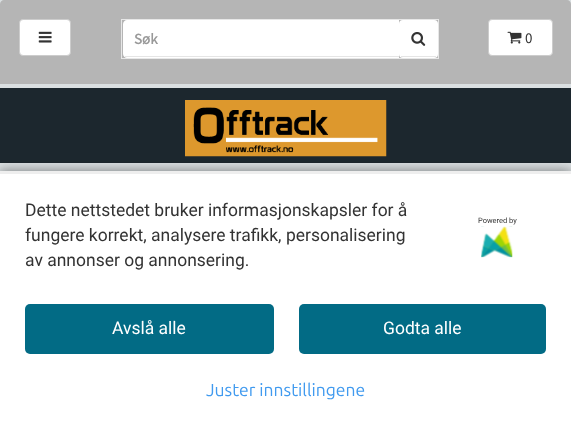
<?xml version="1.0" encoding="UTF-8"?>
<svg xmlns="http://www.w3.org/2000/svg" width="571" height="428">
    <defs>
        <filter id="blur1" x="-50%" y="-200%" width="200%" height="500%"><feGaussianBlur stdDeviation="6"/></filter>
    </defs>
    <rect width="100%" height="100%" fill="#DADFE1"/>
    <path d="M 4 0 H 567 C 569 0 571 2 571 4 V 84 H 0 V 4 C 0 2 2 0 4 0 Z" fill="#B5B5B5"/>
    <rect x="19.5" y="19.5" width="51" height="36" rx="3.5" fill="#FFFFFF" stroke="#CCCCCC"/>
    <image x="38" y="31" width="14" height="12" href="img_01.png"/>
    <rect x="121.5" y="19.5" width="317" height="39" fill="none" stroke="#E7E7E7"/>
    <path d="M 127 20 H 399 V 58 H 127 C 125 58 123 56 123 54 V 24 C 123 22 125 20 127 20 Z" fill="#FFFFFF"/>
    <rect x="125" y="56" width="274" height="1" fill="#E5E5E5"/>
    <text x="134" y="44" font-family="Source Sans Pro" font-size="15" font-weight="700" fill="#999999">Søk</text>
    <rect x="399" y="20" width="39" height="38" rx="4" fill="#FFFFFF"/>
    <rect x="401" y="56" width="35" height="1" fill="#E5E5E5"/>
    <image x="411" y="32" width="15" height="14" href="img_02.png"/>
    <rect x="488.5" y="19.5" width="64" height="36" rx="3.5" fill="#FFFFFF" stroke="#CCCCCC"/>
    <image x="507" y="31" width="15" height="13" href="img_03.png"/>
    <text x="525" y="43" font-family="Source Sans Pro" font-size="15" fill="#333333">0</text>
    <rect x="0" y="88" width="571" height="75" fill="#1C272E"/>
    <image x="185" y="100" width="202" height="57" href="img_04.png"/>
    <rect x="0" y="171" width="571" height="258" fill="#000000" fill-opacity="0.25" filter="url(#blur1)"/>
    <rect x="0" y="171" width="571" height="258" fill="#000000" fill-opacity="0.25" filter="url(#blur1)"/>
    <rect x="0" y="174" width="571" height="254" fill="#FFFFFF"/>
    <rect x="0" y="171" width="571" height="3" fill="#EEEEEE"/>
    <text font-family="Roboto" font-size="17.5" fill="#333333">
        <tspan x="25" y="216">Dette nettstedet bruker informasjonskapsler for å</tspan>
        <tspan x="25" y="241">fungere korrekt, analysere trafikk, personalisering</tspan>
        <tspan x="25" y="266">av annonser og annonsering.</tspan>
    </text>
    <text x="478" y="223" font-family="Roboto" font-size="7.5" fill="#333333">Powered by</text>
    <image x="481" y="226" width="32" height="32" href="img_05.png"/>
    <rect x="25" y="304" width="249" height="50" rx="5" fill="#026B85"/>
    <text x="112" y="334" font-family="Roboto" font-size="17.5" fill="#FFFFFF">Avslå alle</text>
    <rect x="299" y="304" width="247" height="50" rx="5" fill="#026B85"/>
    <text x="383" y="334" font-family="Roboto" font-size="17.5" fill="#FFFFFF">Godta alle</text>
    <text x="206" y="396" font-family="Ubuntu" font-size="17.5" fill="#409AEF">Juster innstillingene</text>
</svg>
